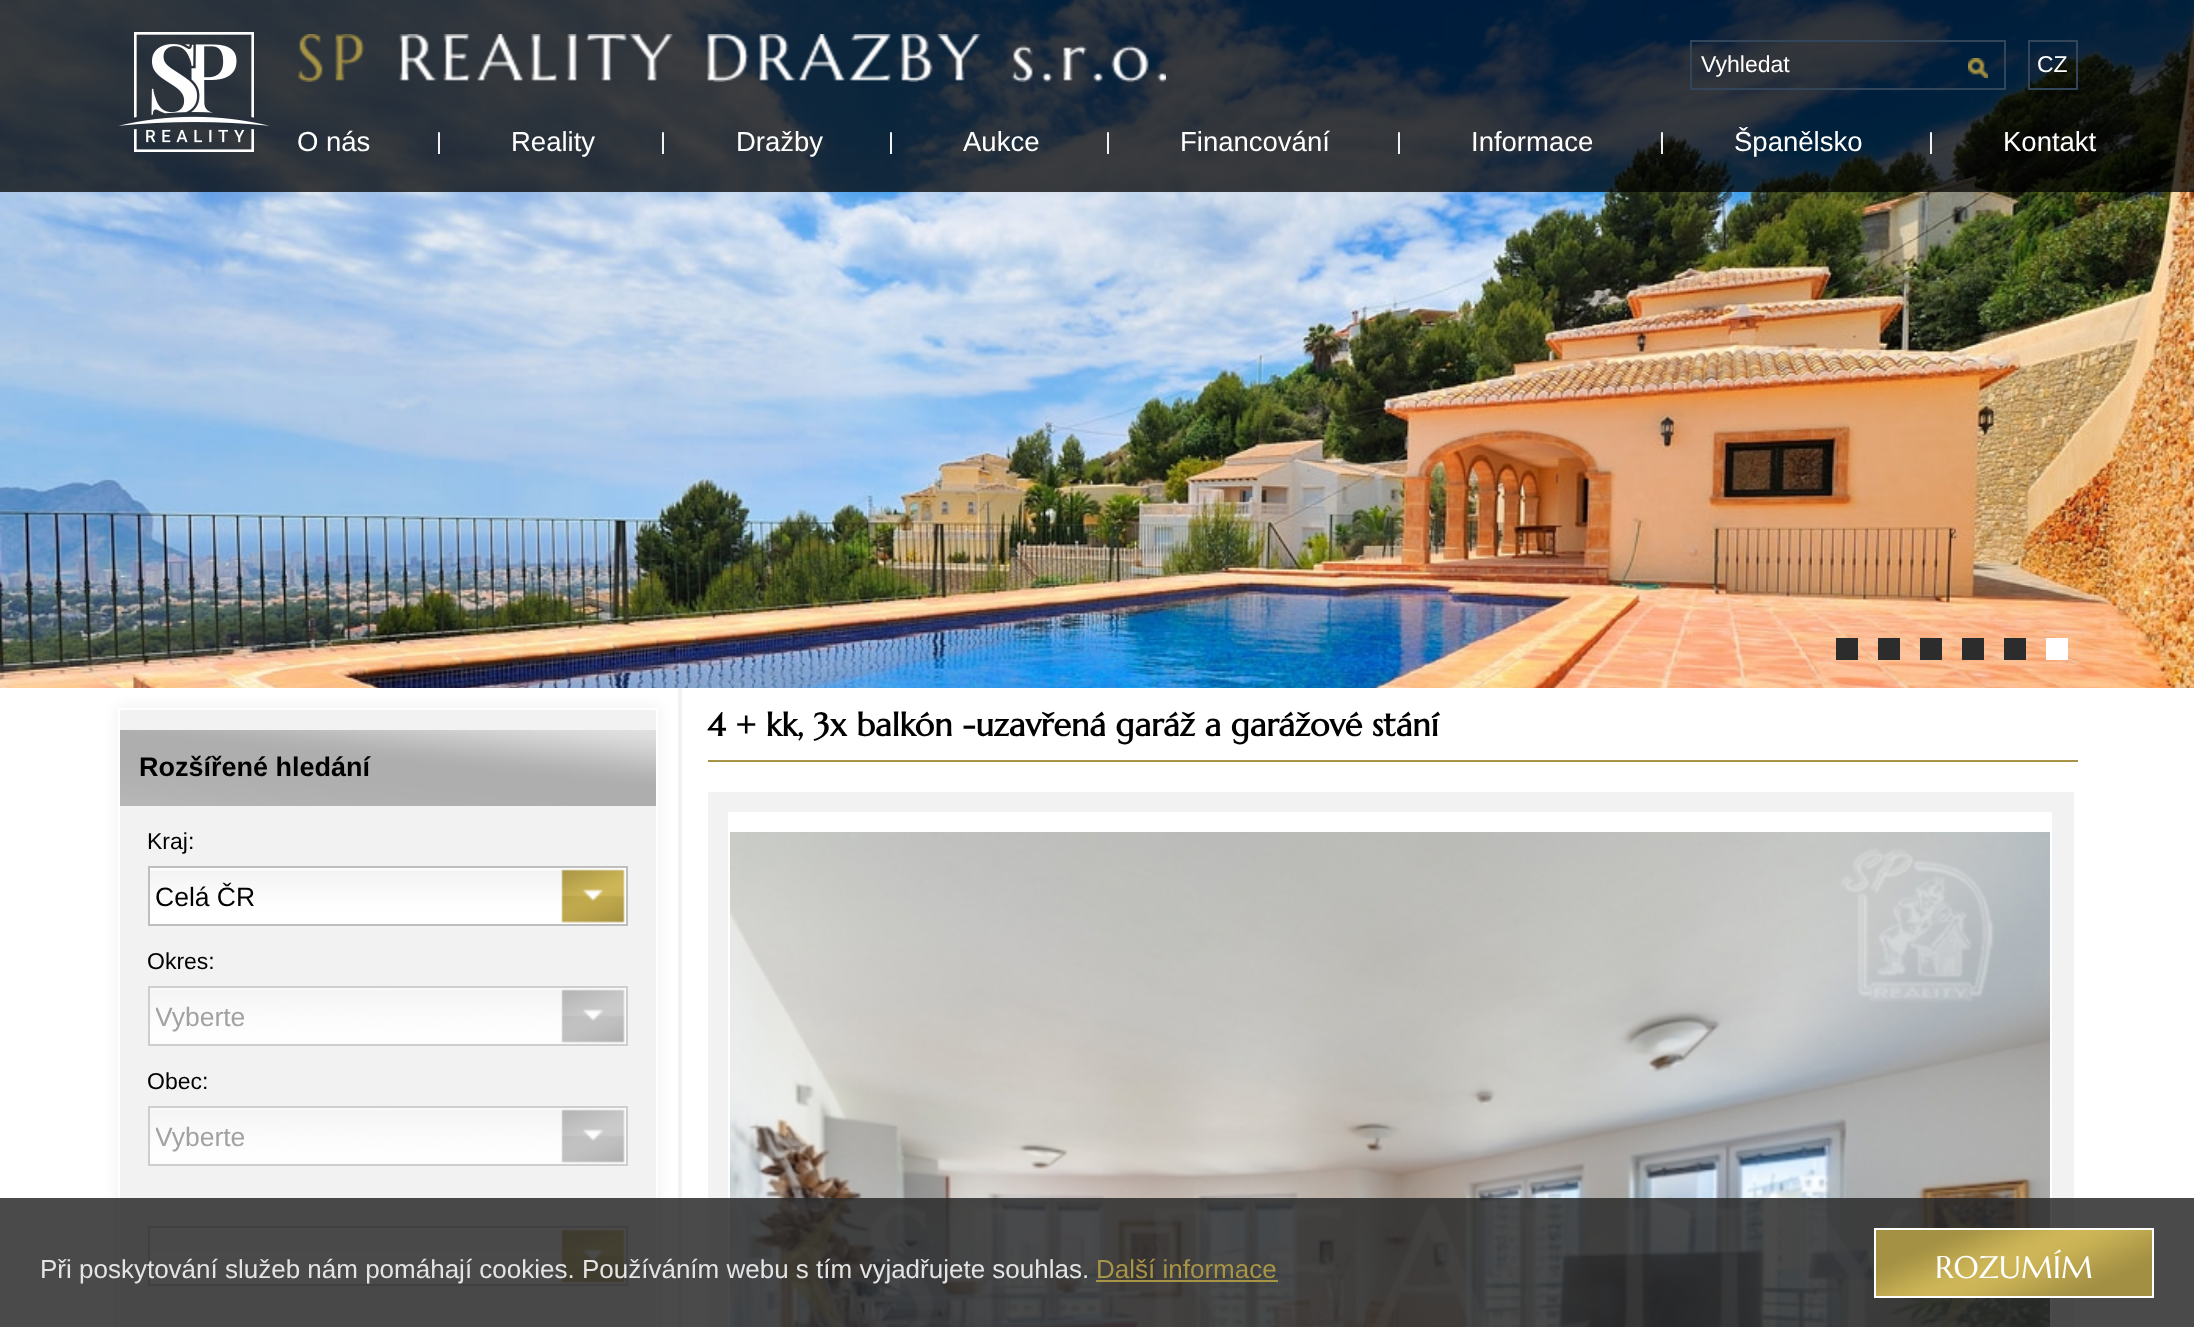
<?xml version="1.0" encoding="UTF-8"?>
<svg xmlns="http://www.w3.org/2000/svg" width="2194" height="1327">
    <defs>
        <filter id="blur1" x="-50%" y="-200%" width="200%" height="500%"><feGaussianBlur stdDeviation="8"/></filter>
        <clipPath id="clip1"><rect x="156" y="988" width="464" height="60"/></clipPath>
        <clipPath id="clip2"><rect x="156" y="1108" width="464" height="60"/></clipPath>
    </defs>
    <rect width="100%" height="100%" fill="#FFFFFF"/>
    <image x="0" y="0" width="2194" height="688" href="img_01.png"/>
    <rect x="1836" y="638" width="22" height="22" fill="#2C2C2C"/>
    <rect x="1878" y="638" width="22" height="22" fill="#2C2C2C"/>
    <rect x="1920" y="638" width="22" height="22" fill="#2C2C2C"/>
    <rect x="1962" y="638" width="22" height="22" fill="#2C2C2C"/>
    <rect x="2004" y="638" width="22" height="22" fill="#2C2C2C"/>
    <rect x="2046" y="638" width="22" height="22" fill="#FFFFFF"/>
    <rect x="0" y="0" width="2194" height="192" fill="#000000" fill-opacity="0.75"/>
    <image x="118" y="32" width="152" height="120" href="img_02.png"/>
    <image x="298" y="34" width="868" height="48" href="img_03.png"/>
    <rect x="1691" y="41" width="314" height="48" fill="none" stroke="#334559" stroke-width="2"/>
    <text x="1701" y="72" font-family="Liberation Sans" font-size="23" fill="#FFFFFF">Vyhledat</text>
    <image x="1968" y="58" width="20" height="20" href="img_04.png"/>
    <rect x="2029" y="41" width="48" height="48" fill="none" stroke="#334559" stroke-width="2"/>
    <text x="2037" y="72" font-family="Liberation Sans" font-size="23" fill="#FFFFFF">CZ</text>
    <text x="297" y="151" font-family="Liberation Sans" font-size="27.5" fill="#FFFFFF">O nás</text>
    <text x="436" y="149" font-family="Liberation Sans" font-size="23" fill="#FFFFFF">|</text>
    <text x="511" y="151" font-family="Liberation Sans" font-size="27.5" fill="#FFFFFF">Reality</text>
    <text x="660" y="149" font-family="Liberation Sans" font-size="23" fill="#FFFFFF">|</text>
    <text x="736" y="151" font-family="Liberation Sans" font-size="27.5" fill="#FFFFFF">Dražby</text>
    <text x="888" y="149" font-family="Liberation Sans" font-size="23" fill="#FFFFFF">|</text>
    <text x="963" y="151" font-family="Liberation Sans" font-size="27.5" fill="#FFFFFF">Aukce</text>
    <text x="1105" y="149" font-family="Liberation Sans" font-size="23" fill="#FFFFFF">|</text>
    <text x="1180" y="151" font-family="Liberation Sans" font-size="27.5" fill="#FFFFFF">Financování</text>
    <text x="1396" y="149" font-family="Liberation Sans" font-size="23" fill="#FFFFFF">|</text>
    <text x="1471" y="151" font-family="Liberation Sans" font-size="27.5" fill="#FFFFFF">Informace</text>
    <text x="1659" y="149" font-family="Liberation Sans" font-size="23" fill="#FFFFFF">|</text>
    <text x="1734" y="151" font-family="Liberation Sans" font-size="27.5" fill="#FFFFFF">Španělsko</text>
    <text x="1928" y="149" font-family="Liberation Sans" font-size="23" fill="#FFFFFF">|</text>
    <text x="2003" y="151" font-family="Liberation Sans" font-size="27.5" fill="#FFFFFF">Kontakt</text>
    <rect x="678" y="688" width="4" height="639" fill="#F2F2F2"/>
    <rect x="708" y="760" width="1370" height="2" fill="#A89446"/>
    <text x="707" y="736" font-family="Marcellus" font-size="32.25" font-weight="700" fill="#000000">4 + kk, 3x balkón -uzavřená garáž a garážové stání</text>
    <rect x="708" y="792" width="1366" height="535" fill="#F2F2F2"/>
    <rect x="728" y="812" width="1324" height="515" fill="#FFFFFF"/>
    <image x="730" y="832" width="1320" height="495" href="img_05.png"/>
    <image x="772" y="1201" width="72" height="126" href="img_06.png"/>
    <image x="1937" y="1201" width="42" height="126" href="img_07.png"/>
    <rect x="118" y="708" width="540" height="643" fill="#EEEEEF" filter="url(#blur1)"/>
    <rect x="119" y="709" width="538" height="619" fill="#F2F2F2" stroke="#FFFFFF" stroke-width="2"/>
    <image x="120" y="730" width="536" height="76" href="img_08.png"/>
    <text x="139" y="776" font-family="Liberation Sans" font-size="27" font-weight="700" fill="#000000">Rozšířené hledání</text>
    <text x="147" y="849" font-family="Liberation Sans" font-size="23" fill="#000000">Kraj:</text>
    <rect x="150" y="868" width="476" height="56" fill="#FFFFFF"/>
    <image x="150" y="869" width="476" height="54" href="img_09.png"/>
    <rect x="149" y="867" width="478" height="58" fill="none" stroke="#BEBEBE" stroke-width="2"/>
    <text x="155" y="906" font-family="Liberation Sans" font-size="26.5" fill="#000000">Celá ČR</text>
    <text x="147" y="969" font-family="Liberation Sans" font-size="23" fill="#000000">Okres:</text>
    <rect x="150" y="988" width="476" height="56" fill="#FBFBFB"/>
    <image x="150" y="989" width="476" height="54" href="img_10.png"/>
    <rect x="149" y="987" width="478" height="58" fill="none" stroke="#CECECE" stroke-width="2"/>
    <g clip-path="url(#clip1)">
        <text x="155" y="1026" font-family="Liberation Sans" font-size="26.5" fill="#A2A2A2">Vyberte</text>
    </g>
    <text x="147" y="1089" font-family="Liberation Sans" font-size="23" fill="#000000">Obec:</text>
    <rect x="150" y="1108" width="476" height="56" fill="#FBFBFB"/>
    <image x="150" y="1109" width="476" height="54" href="img_10.png"/>
    <rect x="149" y="1107" width="478" height="58" fill="none" stroke="#CECECE" stroke-width="2"/>
    <g clip-path="url(#clip2)">
        <text x="155" y="1146" font-family="Liberation Sans" font-size="26.5" fill="#A2A2A2">Vyberte</text>
    </g>
    <rect x="150" y="1228" width="476" height="56" fill="#FFFFFF"/>
    <image x="150" y="1229" width="476" height="54" href="img_09.png"/>
    <rect x="149" y="1227" width="478" height="58" fill="none" stroke="#BEBEBE" stroke-width="2"/>
    <rect x="0" y="1198" width="2194" height="129" fill="#2A2A2A" fill-opacity="0.85"/>
    <text x="40" y="1278" font-family="Liberation Sans" font-size="26" fill="#E4E4E4">Při poskytování služeb nám pomáhají cookies. Používáním webu s tím vyjadřujete souhlas.</text>
    <text x="1096" y="1278" font-family="Liberation Sans" font-size="26" fill="#A89446">Další informace</text>
    <rect x="1096" y="1280" width="182" height="2" fill="#A89446"/>
    <image x="1876" y="1230" width="276" height="66" href="img_11.png"/>
    <rect x="1875" y="1229" width="278" height="68" fill="none" stroke="#FFFFFF" stroke-width="2"/>
    <text x="1935" y="1278" font-family="Marcellus" font-size="31.25" fill="#FFFFFF">ROZUMÍM</text>
</svg>
